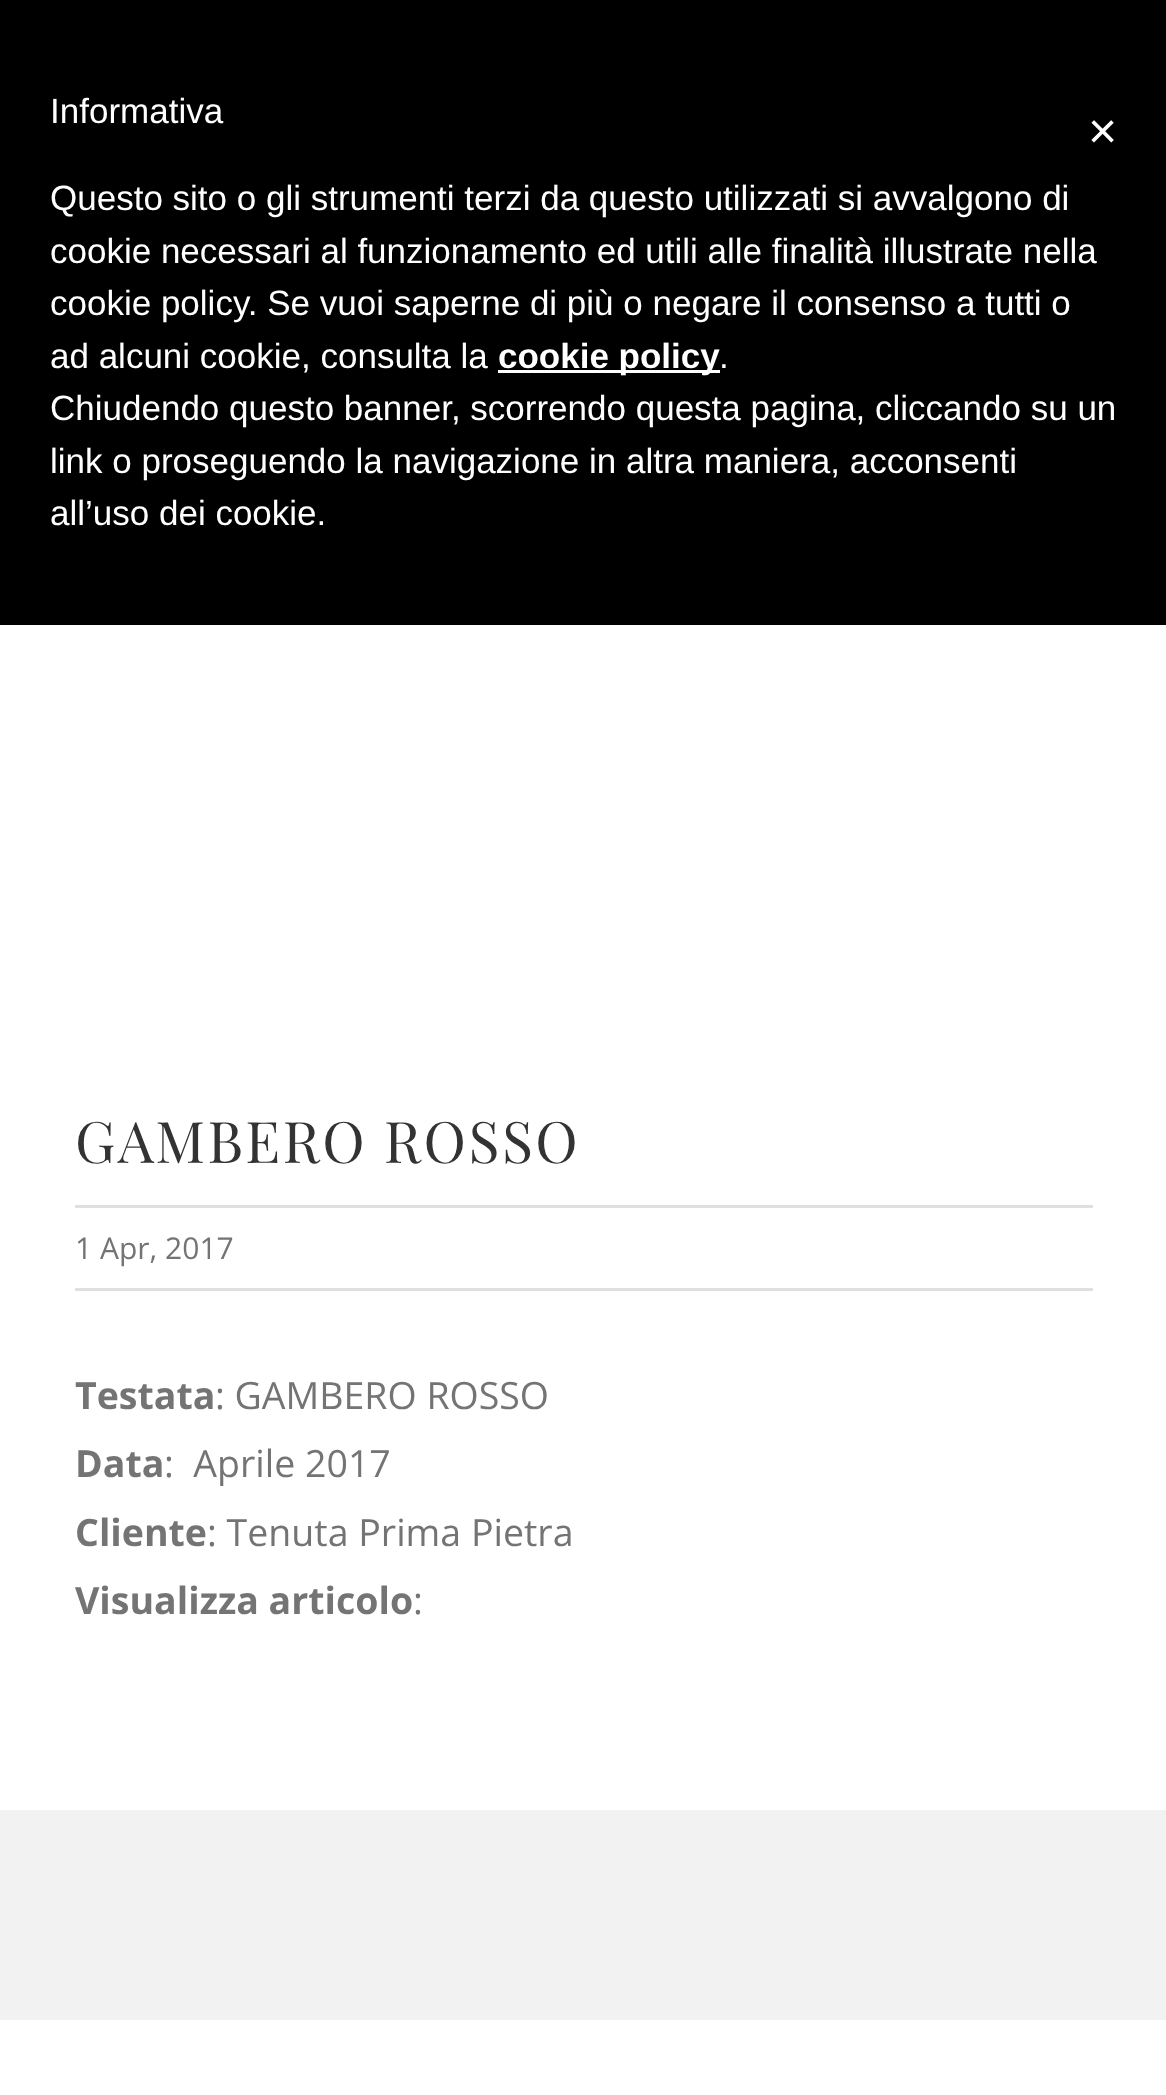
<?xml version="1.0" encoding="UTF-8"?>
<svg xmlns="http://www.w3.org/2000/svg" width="1166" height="2095">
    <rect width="100%" height="100%" fill="#FFFFFF"/>
    <rect x="0" y="0" width="1166" height="625" fill="#000000"/>
    <text x="50" y="123" font-family="Liberation Sans" font-size="35" fill="#FFFFFF">Informativa</text>
    <text font-family="Liberation Sans" font-size="35" fill="#FFFFFF">
        <tspan x="50" y="210">Questo sito o gli strumenti terzi da questo utilizzati si avvalgono di</tspan>
        <tspan x="50" y="263">cookie necessari al funzionamento ed utili alle finalità illustrate nella</tspan>
        <tspan x="50" y="315">cookie policy. Se vuoi saperne di più o negare il consenso a tutti o</tspan>
        <tspan x="50" y="368">ad alcuni cookie, consulta la</tspan>
    </text>
    <rect x="498" y="370" width="222" height="3" fill="#FFFFFF"/>
    <text x="498" y="368" font-family="Liberation Sans" font-size="35" font-weight="700" fill="#FFFFFF">cookie policy</text>
    <text x="719" y="368" font-family="Liberation Sans" font-size="35" fill="#FFFFFF">.</text>
    <text font-family="Liberation Sans" font-size="35" fill="#FFFFFF">
        <tspan x="50" y="420">Chiudendo questo banner, scorrendo questa pagina, cliccando su un</tspan>
        <tspan x="50" y="473">link o proseguendo la navigazione in altra maniera, acconsenti</tspan>
        <tspan x="50" y="525">all’uso dei cookie.</tspan>
    </text>
    <text x="1088" y="148" font-family="Liberation Sans" font-size="50" fill="#FFFFFF">×</text>
    <text x="75" y="1163" font-family="Playfair Display" font-size="57.25" letter-spacing="2.5" fill="#333333">GAMBERO ROSSO</text>
    <rect x="75" y="1205" width="1018" height="3" fill="#E0DEDE"/>
    <rect x="75" y="1288" width="1018" height="3" fill="#E0DEDE"/>
    <text x="75" y="1259" font-family="Open Sans" font-size="30" fill="#747474">1 Apr, 2017</text>
    <text x="75" y="1409" font-family="Open Sans" font-size="37.5" font-weight="700" fill="#747474">Testata</text>
    <text x="215" y="1409" font-family="Open Sans" font-size="37.5" fill="#747474">: GAMBERO ROSSO</text>
    <text x="75" y="1477" font-family="Open Sans" font-size="37.5" font-weight="700" fill="#747474">Data</text>
    <text x="164" y="1477" font-family="Open Sans" font-size="37.5" fill="#747474" xml:space="preserve">:  Aprile 2017</text>
    <text x="75" y="1546" font-family="Open Sans" font-size="37.5" font-weight="700" fill="#747474">Cliente</text>
    <text x="207" y="1546" font-family="Open Sans" font-size="37.5" fill="#747474">: Tenuta Prima Pietra</text>
    <text x="75" y="1614" font-family="Open Sans" font-size="37.5" font-weight="700" fill="#747474">Visualizza articolo</text>
    <text x="413" y="1614" font-family="Open Sans" font-size="37.5" fill="#747474">:</text>
    <rect x="0" y="1810" width="1166" height="210" fill="#F2F2F2"/>
</svg>
